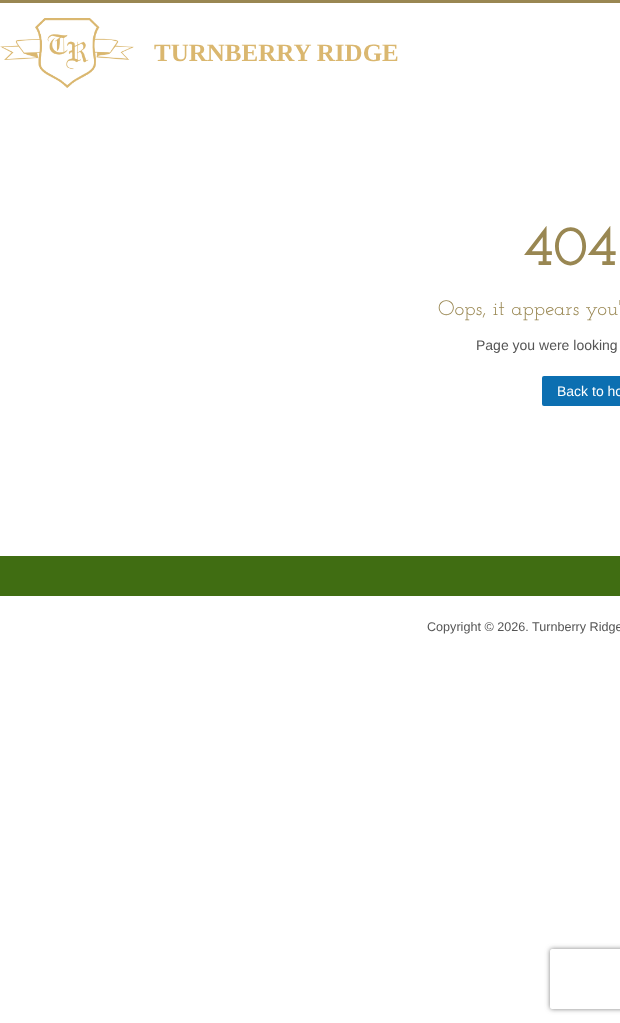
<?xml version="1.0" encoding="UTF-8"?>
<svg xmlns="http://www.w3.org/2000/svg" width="620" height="1023">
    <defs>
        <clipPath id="clip1"><path d="M 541 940 H 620 V 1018 H 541 Z M 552 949 H 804 C 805 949 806 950 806 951 V 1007 C 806 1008 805 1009 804 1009 H 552 C 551 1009 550 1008 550 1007 V 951 C 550 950 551 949 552 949 Z" clip-rule="evenodd"/></clipPath>
        <filter id="blur1" x="-50%" y="-200%" width="200%" height="500%"><feGaussianBlur stdDeviation="2.5"/></filter>
    </defs>
    <rect width="100%" height="100%" fill="#FFFFFF"/>
    <rect x="0" y="0" width="620" height="3" fill="#998752"/>
    <image x="0" y="18" width="134" height="70" href="img_01.png"/>
    <text x="154" y="61" font-family="Liberation Serif" font-size="25" font-weight="700" fill="#DAB76F">TURNBERRY RIDGE</text>
    <text x="523" y="265" font-family="Josefin Slab" font-size="55" font-weight="700" fill="#998752">404</text>
    <text x="438" y="315" font-family="Josefin Slab" font-size="21" font-weight="100" fill="#998752">Oops, it appears you'</text>
    <text x="476" y="350" font-family="Liberation Sans" font-size="14" fill="#555555">Page you were looking</text>
    <rect x="542" y="376" width="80" height="30" rx="2" fill="#0C6FB1"/>
    <text x="557" y="396" font-family="Liberation Sans" font-size="14" fill="#FFFFFF">Back to ho</text>
    <rect x="0" y="556" width="620" height="40" fill="#406D12"/>
    <text x="427" y="631" font-family="Liberation Sans" font-size="12.6" fill="#555555">Copyright © 2026. Turnberry Ridge</text>
    <g clip-path="url(#clip1)">
        <rect x="550" y="949" width="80" height="60" rx="2" fill="#808080" filter="url(#blur1)"/>
    </g>
</svg>
